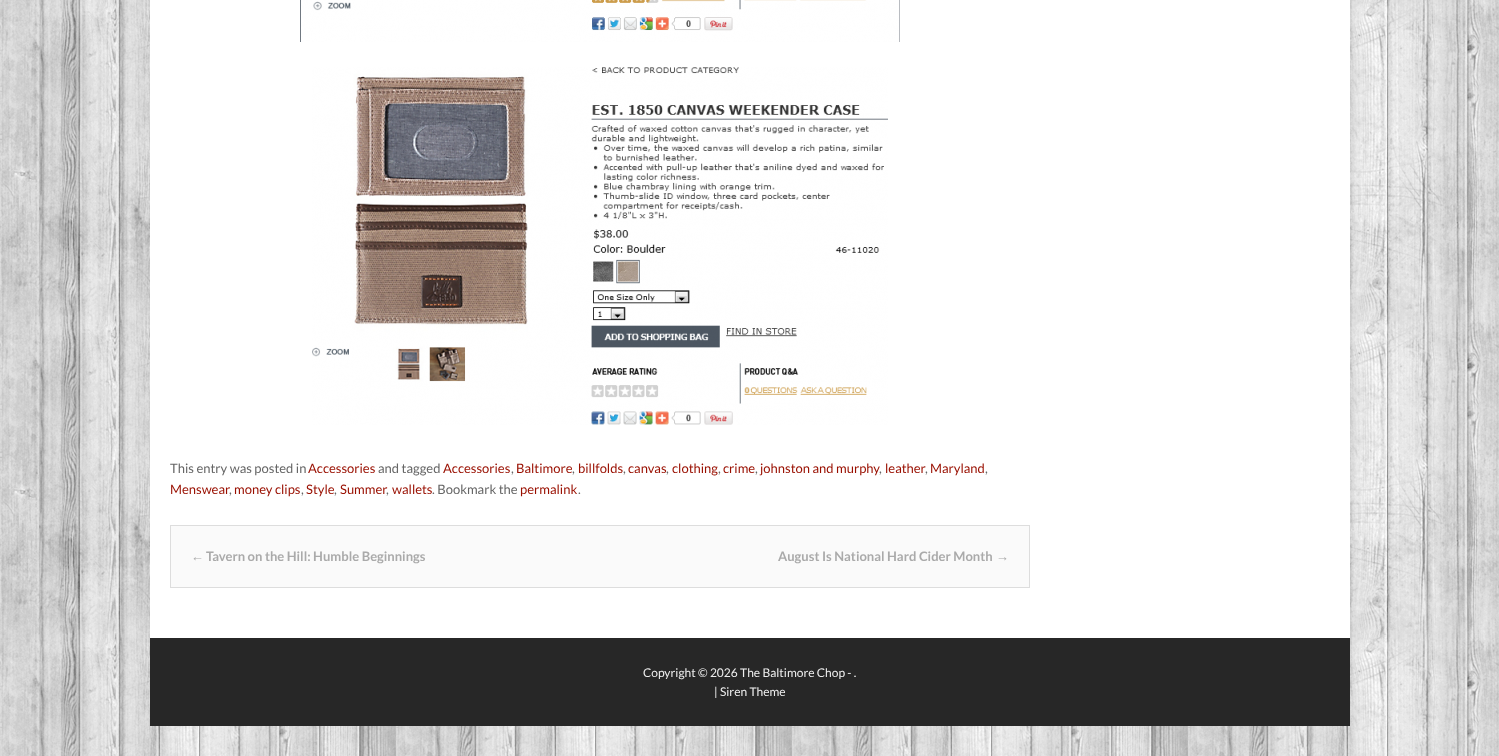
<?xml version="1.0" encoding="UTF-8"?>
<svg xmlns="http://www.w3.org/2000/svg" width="1499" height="756">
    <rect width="100%" height="100%" fill="#FFFFFF"/>
    <image x="0" y="0" width="1499" height="756" href="img_01.png"/>
    <rect x="150" y="0" width="1200" height="638" fill="#FFFFFF"/>
    <image x="300" y="0" width="600" height="42" href="img_02.png"/>
    <image x="312" y="67" width="576" height="358" href="img_03.png"/>
    <text x="170" y="473" font-family="Lato" font-size="13" fill="#666666">This entry was posted in</text>
    <text x="308" y="473" font-family="Lato" font-size="13" fill="#990F00">Accessories</text>
    <text x="378" y="473" font-family="Lato" font-size="13" fill="#666666">and tagged</text>
    <text x="443" y="473" font-family="Lato" font-size="13" fill="#990F00">Accessories</text>
    <text x="511" y="473" font-family="Lato" font-size="13" fill="#666666">,</text>
    <text x="516" y="473" font-family="Lato" font-size="13" fill="#990F00">Baltimore</text>
    <text x="572" y="473" font-family="Lato" font-size="13" fill="#666666">,</text>
    <text x="578" y="473" font-family="Lato" font-size="13" fill="#990F00">billfolds</text>
    <text x="623" y="473" font-family="Lato" font-size="13" fill="#666666">,</text>
    <text x="628" y="473" font-family="Lato" font-size="13" fill="#990F00">canvas</text>
    <text x="666" y="473" font-family="Lato" font-size="13" fill="#666666">,</text>
    <text x="672" y="473" font-family="Lato" font-size="13" fill="#990F00">clothing</text>
    <text x="718" y="473" font-family="Lato" font-size="13" fill="#666666">,</text>
    <text x="723" y="473" font-family="Lato" font-size="13" fill="#990F00">crime</text>
    <text x="755" y="473" font-family="Lato" font-size="13" fill="#666666">,</text>
    <text x="760" y="473" font-family="Lato" font-size="13" fill="#990F00">johnston and murphy</text>
    <text x="879" y="473" font-family="Lato" font-size="13" fill="#666666">,</text>
    <text x="885" y="473" font-family="Lato" font-size="13" fill="#990F00">leather</text>
    <text x="930" y="473" font-family="Lato" font-size="13" fill="#990F00">Maryland</text>
    <text x="925" y="473" font-family="Lato" font-size="13" fill="#666666">,</text>
    <text x="985" y="473" font-family="Lato" font-size="13" fill="#666666">,</text>
    <text x="170" y="494" font-family="Lato" font-size="13" fill="#990F00">Menswear</text>
    <text x="229" y="494" font-family="Lato" font-size="13" fill="#666666">,</text>
    <text x="234" y="494" font-family="Lato" font-size="13" fill="#990F00">money clips</text>
    <text x="301" y="494" font-family="Lato" font-size="13" fill="#666666">,</text>
    <text x="306" y="494" font-family="Lato" font-size="13" fill="#990F00">Style</text>
    <text x="334" y="494" font-family="Lato" font-size="13" fill="#666666">,</text>
    <text x="340" y="494" font-family="Lato" font-size="13" fill="#990F00">Summer</text>
    <text x="386" y="494" font-family="Lato" font-size="13" fill="#666666">,</text>
    <text x="392" y="494" font-family="Lato" font-size="13" fill="#990F00">wallets</text>
    <text x="432" y="494" font-family="Lato" font-size="13" fill="#666666">. Bookmark the</text>
    <text x="520" y="494" font-family="Lato" font-size="13" fill="#990F00">permalink</text>
    <text x="578" y="494" font-family="Lato" font-size="13" fill="#666666">.</text>
    <rect x="170.5" y="525.5" width="859" height="62" fill="#FAFAFA" stroke="#DDDDDD"/>
    <text x="191" y="561" font-family="Liberation Sans" font-size="13" font-weight="700" fill="#AAAAAA">←</text>
    <text x="206" y="561" font-family="Lato" font-size="13" font-weight="700" fill="#AAAAAA">Tavern on the Hill: Humble Beginnings</text>
    <text x="778" y="561" font-family="Lato" font-size="13" font-weight="700" fill="#AAAAAA">August Is National Hard Cider Month</text>
    <text x="996" y="561" font-family="Liberation Sans" font-size="13" font-weight="700" fill="#AAAAAA">→</text>
    <rect x="150" y="638" width="1200" height="88" fill="#272727"/>
    <text x="643" y="677" font-family="Lato" font-size="12" fill="#EEEEEE">Copyright © 2026 The Baltimore Chop - .</text>
    <text x="714" y="696" font-family="Lato" font-size="12" fill="#EEEEEE">| Siren Theme</text>
</svg>
